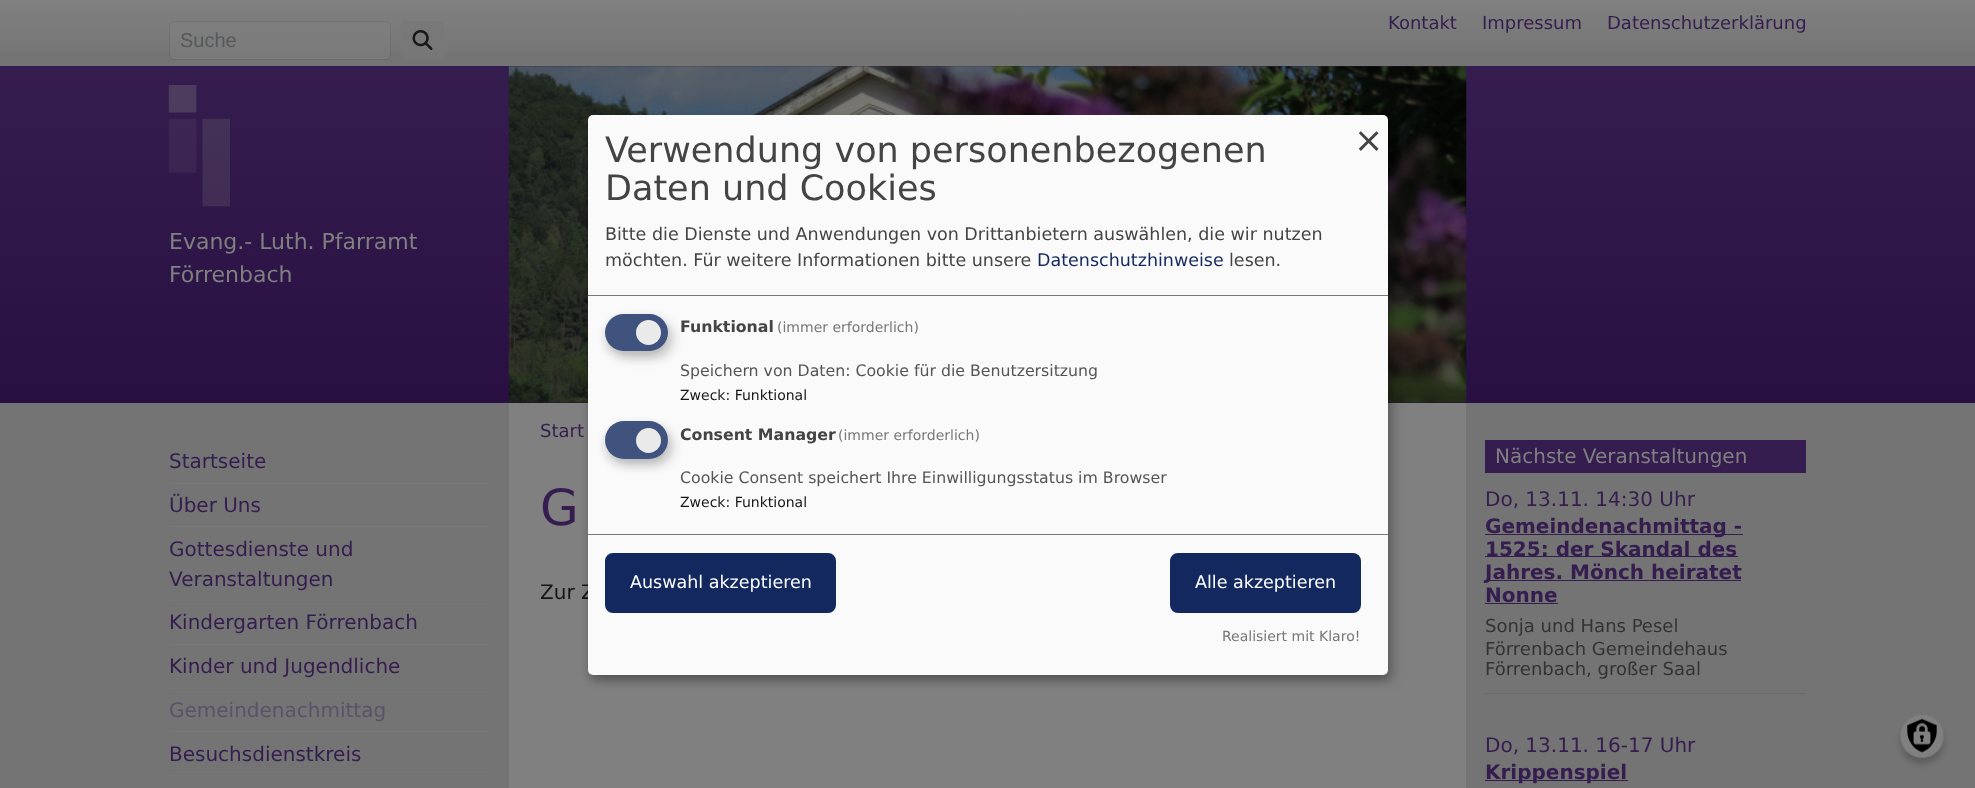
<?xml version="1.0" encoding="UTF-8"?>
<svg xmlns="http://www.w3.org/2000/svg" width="1975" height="788">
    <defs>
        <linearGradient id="g1" gradientUnits="userSpaceOnUse" x1="988" y1="0" x2="988" y2="66"><stop offset="0" stop-color="#808080"/><stop offset="1" stop-color="#747474"/></linearGradient>
        <linearGradient id="g2" gradientUnits="userSpaceOnUse" x1="988" y1="66" x2="988" y2="403"><stop offset="0" stop-color="#361D4F"/><stop offset="1" stop-color="#291042"/></linearGradient>
        <filter id="blur1" x="-50%" y="-200%" width="200%" height="500%"><feGaussianBlur stdDeviation="6"/></filter>
        <filter id="blur2" x="-50%" y="-200%" width="200%" height="500%"><feGaussianBlur stdDeviation="4"/></filter>
        <filter id="blur3" x="-50%" y="-200%" width="200%" height="500%"><feGaussianBlur stdDeviation="3"/></filter>
    </defs>
    <rect width="100%" height="100%" fill="#747474"/>
    <rect x="0" y="0" width="1975" height="52" fill="url(#g1)"/>
    <text x="1388" y="29" font-family="DejaVu Sans" font-size="18" fill="#361D4F">Kontakt</text>
    <text x="1482" y="29" font-family="DejaVu Sans" font-size="18" fill="#361D4F">Impressum</text>
    <text x="1607" y="29" font-family="DejaVu Sans" font-size="18" fill="#361D4F">Datenschutzerklärung</text>
    <rect x="170" y="23" width="220" height="36" rx="4" fill="#808080" fill-opacity="0.5"/>
    <rect x="169.5" y="21.5" width="221" height="38" rx="4.5" fill="none" stroke="#000000" stroke-opacity="0.07"/>
    <text x="180" y="47" font-family="Liberation Sans" font-size="20" fill="#57595B">Suche</text>
    <rect x="401" y="21" width="43" height="39" rx="5" fill="#787878" fill-opacity="0.8"/>
    <image x="412" y="30" width="21" height="20" href="img_01.png"/>
    <rect x="0" y="66" width="1975" height="337" fill="url(#g2)"/>
    <image x="168" y="85" width="62" height="122" href="img_02.png"/>
    <text font-family="DejaVu Sans" font-size="22" fill="#808080">
        <tspan x="169" y="249">Evang.- Luth. Pfarramt</tspan>
        <tspan x="169" y="282">Förrenbach</tspan>
    </text>
    <image x="508" y="66" width="959" height="337" href="img_03.png"/>
    <rect x="169" y="483" width="321" height="1" fill="#787878"/>
    <text x="169" y="468" font-family="DejaVu Sans" font-size="20" fill="#361D4F">Startseite</text>
    <rect x="169" y="526" width="321" height="1" fill="#787878"/>
    <text x="169" y="512" font-family="DejaVu Sans" font-size="20" fill="#361D4F">Über Uns</text>
    <rect x="169" y="600" width="321" height="1" fill="#787878"/>
    <text font-family="DejaVu Sans" font-size="20" fill="#361D4F">
        <tspan x="169" y="556">Gottesdienste und</tspan>
        <tspan x="169" y="586">Veranstaltungen</tspan>
    </text>
    <rect x="169" y="644" width="321" height="1" fill="#787878"/>
    <text x="169" y="629" font-family="DejaVu Sans" font-size="20" fill="#361D4F">Kindergarten Förrenbach</text>
    <rect x="169" y="688" width="321" height="1" fill="#787878"/>
    <text x="169" y="673" font-family="DejaVu Sans" font-size="20" fill="#361D4F">Kinder und Jugendliche</text>
    <rect x="169" y="731" width="321" height="1" fill="#787878"/>
    <text x="169" y="717" font-family="DejaVu Sans" font-size="20" fill="#5D5169">Gemeindenachmittag</text>
    <rect x="169" y="775" width="321" height="1" fill="#787878"/>
    <text x="169" y="761" font-family="DejaVu Sans" font-size="20" fill="#361D4F">Besuchsdienstkreis</text>
    <rect x="509" y="403" width="957" height="385" fill="#808080"/>
    <text x="540" y="437" font-family="DejaVu Sans" font-size="18" fill="#361D4F">Start</text>
    <text x="540" y="525" font-family="DejaVu Sans" font-size="50" fill="#361D4F">G</text>
    <text x="540" y="599" font-family="DejaVu Sans" font-size="20" fill="#151616">Zur Z</text>
    <rect x="1485" y="440" width="321" height="33" fill="#361D4F"/>
    <text x="1495" y="463" font-family="DejaVu Sans" font-size="20" fill="#808080">Nächste Veranstaltungen</text>
    <rect x="1485" y="693" width="321" height="1" fill="#6B6B6B"/>
    <text x="1485" y="506" font-family="DejaVu Sans" font-size="20" fill="#361D4F">Do, 13.11. 14:30 Uhr</text>
    <rect x="1485" y="534" width="258" height="1" fill="#361D4F"/>
    <text x="1485" y="533" font-family="DejaVu Sans" font-size="20" font-weight="700" fill="#361D4F">Gemeindenachmittag -</text>
    <rect x="1485" y="556" width="253" height="1" fill="#361D4F"/>
    <text x="1485" y="556" font-family="DejaVu Sans" font-size="20" font-weight="700" fill="#361D4F">1525: der Skandal des</text>
    <rect x="1485" y="580" width="256" height="1" fill="#361D4F"/>
    <text font-family="DejaVu Sans" font-size="20" font-weight="700" fill="#361D4F">
        <tspan x="1485" y="579">Jahres. Mönch heiratet</tspan>
        <tspan x="1485" y="602">Nonne</tspan>
    </text>
    <rect x="1485" y="603" width="73" height="1" fill="#361D4F"/>
    <text font-family="DejaVu Sans" font-size="18" fill="#333333">
        <tspan x="1485" y="632">Sonja und Hans Pesel</tspan>
        <tspan x="1485" y="655">Förrenbach Gemeindehaus</tspan>
        <tspan x="1485" y="675">Förrenbach, großer Saal</tspan>
    </text>
    <text x="1485" y="752" font-family="DejaVu Sans" font-size="20" fill="#361D4F">Do, 13.11. 16-17 Uhr</text>
    <rect x="1485" y="780" width="143" height="1" fill="#361D4F"/>
    <text x="1485" y="779" font-family="DejaVu Sans" font-size="20" font-weight="700" fill="#361D4F">Krippenspiel</text>
    <rect x="594" y="121" width="800" height="560" rx="5" fill="#000000" fill-opacity="0.19" filter="url(#blur1)"/>
    <rect x="588" y="120" width="800" height="560" rx="5" fill="#000000" fill-opacity="0.2" filter="url(#blur2)"/>
    <rect x="588" y="115" width="800" height="560" rx="5" fill="#FAFAFA"/>
    <rect x="588" y="295" width="800" height="1" fill="#777777"/>
    <text font-family="DejaVu Sans" font-size="35" fill="#444444">
        <tspan x="605" y="162">Verwendung von personenbezogenen</tspan>
        <tspan x="605" y="200">Daten und Cookies</tspan>
    </text>
    <text font-family="DejaVu Sans" font-size="17.5" fill="#444444">
        <tspan x="605" y="240">Bitte die Dienste und Anwendungen von Drittanbietern auswählen, die wir nutzen</tspan>
        <tspan x="605" y="266">möchten. Für weitere Informationen bitte unsere</tspan>
    </text>
    <text x="1037" y="266" font-family="DejaVu Sans" font-size="17.5" fill="#12285F">Datenschutzhinweise</text>
    <text x="1229" y="266" font-family="DejaVu Sans" font-size="17.5" fill="#444444">lesen.</text>
    <text x="1354" y="152" font-family="DejaVu Sans" font-size="35" fill="#444444">×</text>
    <rect x="611" y="320" width="63" height="38" rx="19" fill="#000000" fill-opacity="0.15" filter="url(#blur1)"/>
    <rect x="605" y="319" width="63" height="37" rx="18.5" fill="#323232" fill-opacity="0.2" filter="url(#blur2)"/>
    <rect x="605" y="314" width="63" height="37" rx="18.5" fill="#40527E"/>
    <circle cx="648.5" cy="332.5" r="12.5" fill="#EAEAEA"/>
    <text x="680" y="332" font-family="DejaVu Sans" font-size="15.75" font-weight="700" fill="#444444">Funktional</text>
    <text x="777" y="332" font-family="DejaVu Sans" font-size="14" fill="#777777">(immer erforderlich)</text>
    <text x="680" y="376" font-family="DejaVu Sans" font-size="15.75" fill="#555555">Speichern von Daten: Cookie für die Benutzersitzung</text>
    <text x="680" y="400" font-family="DejaVu Sans" font-size="14" fill="#151616">Zweck: Funktional</text>
    <rect x="611" y="428" width="63" height="37" rx="18.5" fill="#000000" fill-opacity="0.15" filter="url(#blur1)"/>
    <rect x="605" y="426" width="63" height="38" rx="19" fill="#323232" fill-opacity="0.2" filter="url(#blur2)"/>
    <rect x="605" y="421" width="63" height="38" rx="19" fill="#40527E"/>
    <circle cx="648.5" cy="440.5" r="12.5" fill="#EAEAEA"/>
    <text x="680" y="440" font-family="DejaVu Sans" font-size="15.75" font-weight="700" fill="#444444">Consent Manager</text>
    <text x="838" y="440" font-family="DejaVu Sans" font-size="14" fill="#777777">(immer erforderlich)</text>
    <text x="680" y="483" font-family="DejaVu Sans" font-size="15.75" fill="#555555">Cookie Consent speichert Ihre Einwilligungsstatus im Browser</text>
    <text x="680" y="507" font-family="DejaVu Sans" font-size="14" fill="#151616">Zweck: Funktional</text>
    <rect x="588" y="534" width="800" height="1" fill="#777777"/>
    <rect x="607" y="555" width="227" height="56" rx="6" fill="#12285F" stroke="#12285F" stroke-width="4"/>
    <text x="630" y="588" font-family="DejaVu Sans" font-size="17.5" fill="#FFFFFF">Auswahl akzeptieren</text>
    <rect x="1172" y="555" width="187" height="56" rx="6" fill="#12285F" stroke="#12285F" stroke-width="4"/>
    <text x="1195" y="588" font-family="DejaVu Sans" font-size="17.5" fill="#FFFFFF">Alle akzeptieren</text>
    <text x="1222" y="641" font-family="DejaVu Sans" font-size="14" fill="#777777">Realisiert mit Klaro!</text>
    <rect x="1900" y="720" width="44" height="44" rx="22" fill="#000000" fill-opacity="0.2" filter="url(#blur3)"/>
    <circle cx="1922" cy="736" r="22" fill="#808080"/>
    <image x="1907" y="718" width="30" height="35" href="img_04.png"/>
    <circle cx="1922" cy="736" r="21.5" fill="none" stroke="#757575"/>
</svg>
